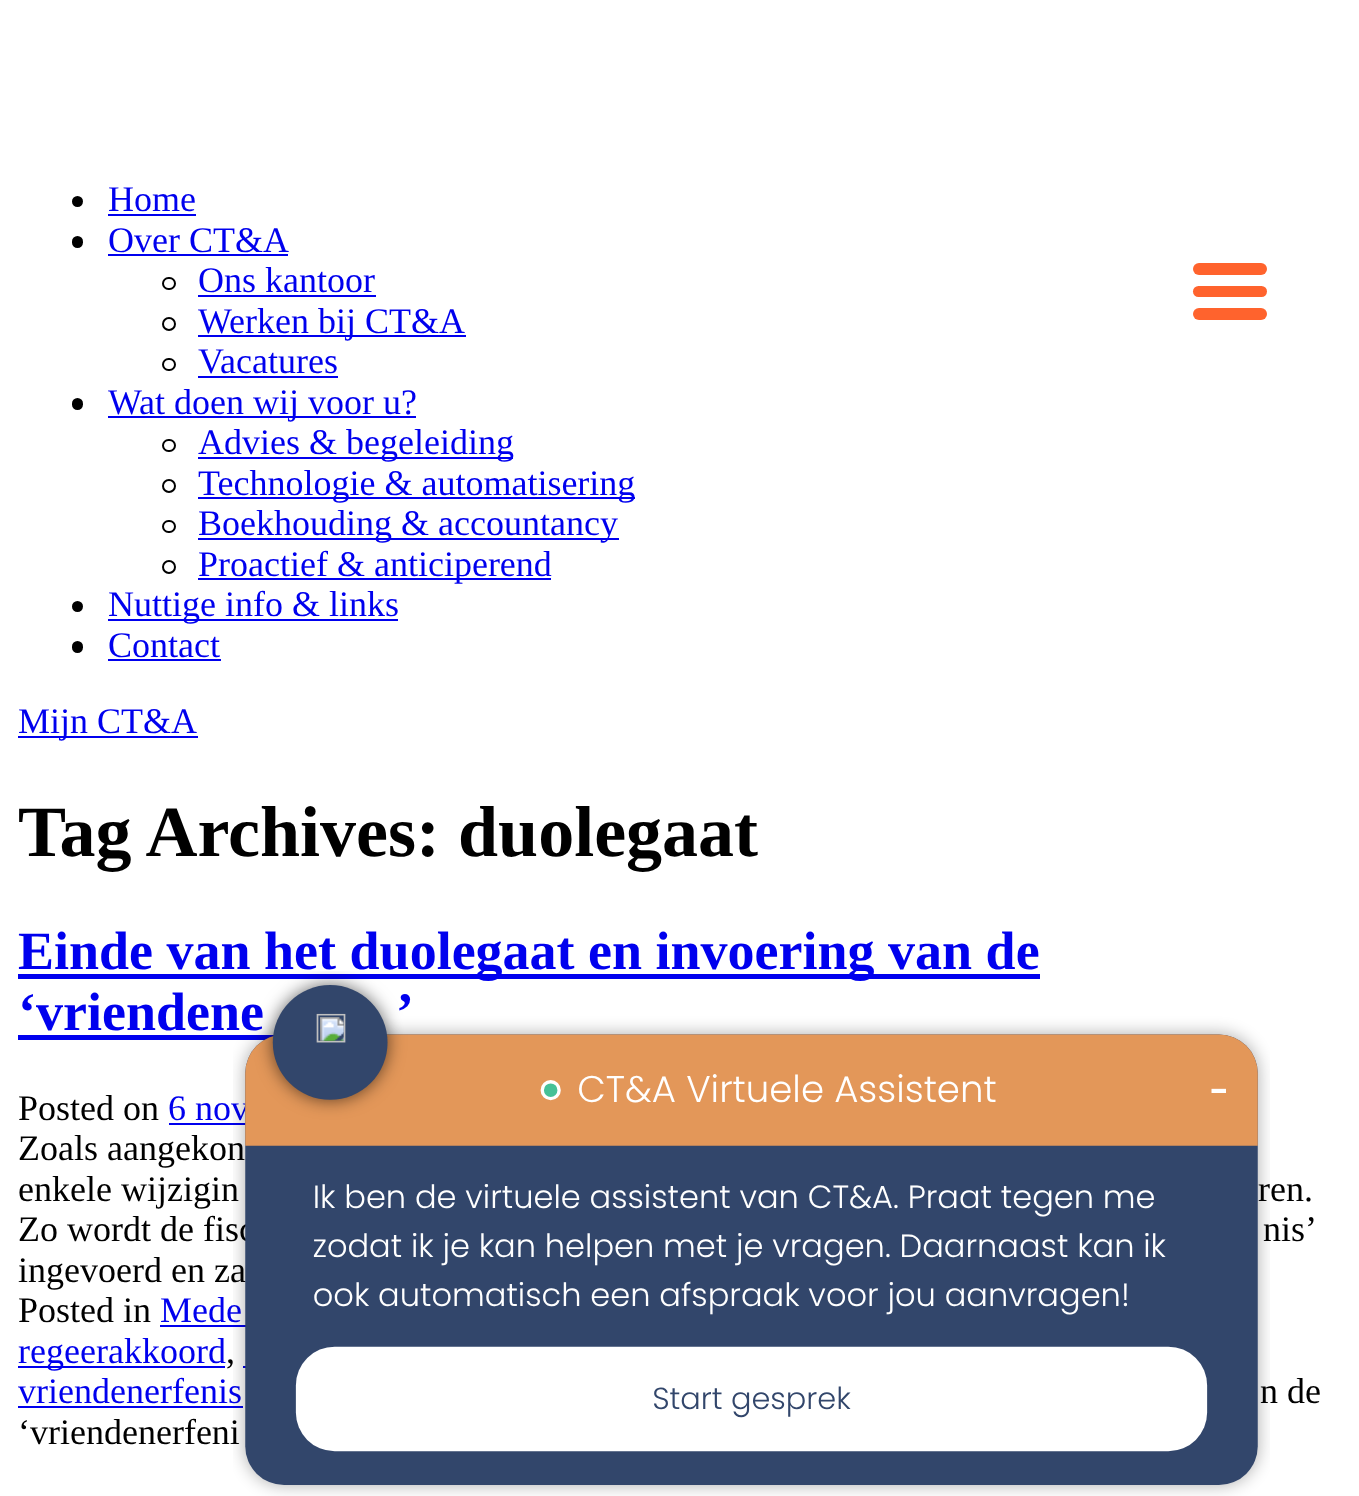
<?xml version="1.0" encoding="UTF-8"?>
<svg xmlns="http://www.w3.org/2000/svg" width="1359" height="1496">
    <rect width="100%" height="100%" fill="#FFFFFF"/>
    <circle cx="77.5" cy="201.5" r="5.5" fill="#000000"/>
    <text x="108" y="211" font-family="Liberation Serif" font-size="36" fill="#0000EE">Home</text>
    <rect x="108" y="214" width="88" height="2" fill="#0000EE"/>
    <rect x="72" y="236" width="11" height="12" rx="5.5" fill="#000000"/>
    <text x="108" y="252" font-family="Liberation Serif" font-size="36" fill="#0000EE">Over CT&amp;A</text>
    <rect x="108" y="254" width="180" height="2" fill="#0000EE"/>
    <rect x="163" y="278" width="12" height="11" rx="5.5" fill="none" stroke="#000000" stroke-width="2"/>
    <text x="198" y="292" font-family="Liberation Serif" font-size="36" fill="#0000EE">Ons kantoor</text>
    <rect x="198" y="295" width="178" height="2" fill="#0000EE"/>
    <circle cx="169" cy="324" r="6" fill="none" stroke="#000000" stroke-width="2"/>
    <rect x="198" y="335" width="268" height="2" fill="#0000EE"/>
    <text x="198" y="333" font-family="Liberation Serif" font-size="36" fill="#0000EE">Werken bij CT&amp;A</text>
    <rect x="163" y="359" width="12" height="11" rx="5.5" fill="none" stroke="#000000" stroke-width="2"/>
    <text x="198" y="373" font-family="Liberation Serif" font-size="36" fill="#0000EE">Vacatures</text>
    <rect x="198" y="376" width="140" height="2" fill="#0000EE"/>
    <rect x="72" y="398" width="11" height="12" rx="5.5" fill="#000000"/>
    <rect x="108" y="416" width="308" height="2" fill="#0000EE"/>
    <text x="108" y="414" font-family="Liberation Serif" font-size="36" fill="#0000EE">Wat doen wij voor u?</text>
    <rect x="163" y="440" width="12" height="11" rx="5.5" fill="none" stroke="#000000" stroke-width="2"/>
    <rect x="198" y="457" width="315" height="2" fill="#0000EE"/>
    <text x="198" y="454" font-family="Liberation Serif" font-size="36" fill="#0000EE">Advies &amp; begeleiding</text>
    <circle cx="169" cy="486" r="6" fill="none" stroke="#000000" stroke-width="2"/>
    <rect x="198" y="497" width="437" height="2" fill="#0000EE"/>
    <text x="198" y="495" font-family="Liberation Serif" font-size="36" fill="#0000EE">Technologie &amp; automatisering</text>
    <rect x="163" y="521" width="12" height="11" rx="5.5" fill="none" stroke="#000000" stroke-width="2"/>
    <rect x="198" y="538" width="421" height="2" fill="#0000EE"/>
    <text x="198" y="535" font-family="Liberation Serif" font-size="36" fill="#0000EE">Boekhouding &amp; accountancy</text>
    <circle cx="169" cy="567" r="6" fill="none" stroke="#000000" stroke-width="2"/>
    <rect x="198" y="578" width="353" height="2" fill="#0000EE"/>
    <text x="198" y="576" font-family="Liberation Serif" font-size="36" fill="#0000EE">Proactief &amp; anticiperend</text>
    <circle cx="77.5" cy="606.5" r="5.5" fill="#000000"/>
    <rect x="108" y="619" width="290" height="2" fill="#0000EE"/>
    <text x="108" y="616" font-family="Liberation Serif" font-size="36" fill="#0000EE">Nuttige info &amp; links</text>
    <rect x="72" y="641" width="11" height="12" rx="5.5" fill="#000000"/>
    <text x="108" y="657" font-family="Liberation Serif" font-size="36" fill="#0000EE">Contact</text>
    <rect x="108" y="659" width="113" height="2" fill="#0000EE"/>
    <rect x="18" y="736" width="180" height="2" fill="#0000EE"/>
    <text x="18" y="733" font-family="Liberation Serif" font-size="36" fill="#0000EE">Mijn CT&amp;A</text>
    <text x="18" y="856" font-family="Liberation Serif" font-size="72" font-weight="700" fill="#000000">Tag Archives: duolegaat</text>
    <rect x="18" y="974" width="1022" height="5" fill="#0000EE"/>
    <text font-family="Liberation Serif" font-size="54" font-weight="700" fill="#0000EE">
        <tspan x="18" y="969">Einde van het duolegaat en invoering van de</tspan>
        <tspan x="18" y="1030">‘vriendene</tspan>
    </text>
    <rect x="18" y="1035" width="256" height="5" fill="#0000EE"/>
    <text x="396" y="1030" font-family="Liberation Serif" font-size="54" font-weight="700" fill="#0000EE">’</text>
    <text x="18" y="1120" font-family="Liberation Serif" font-size="36" fill="#000000">Posted on</text>
    <text x="168" y="1120" font-family="Liberation Serif" font-size="36" fill="#0000EE">6 nov</text>
    <rect x="169" y="1123" width="77" height="2" fill="#0000EE"/>
    <text font-family="Liberation Serif" font-size="36" fill="#000000">
        <tspan x="18" y="1160">Zoals aangekon</tspan>
        <tspan x="18" y="1201">enkele wijzigin</tspan>
    </text>
    <text x="1258" y="1201" font-family="Liberation Serif" font-size="36" fill="#000000">ren.</text>
    <text x="18" y="1241" font-family="Liberation Serif" font-size="36" fill="#000000">Zo wordt de fisc</text>
    <text x="1263" y="1241" font-family="Liberation Serif" font-size="36" fill="#000000">nis’</text>
    <text font-family="Liberation Serif" font-size="36" fill="#000000">
        <tspan x="18" y="1282">ingevoerd en za</tspan>
        <tspan x="18" y="1322">Posted in</tspan>
    </text>
    <text x="160" y="1322" font-family="Liberation Serif" font-size="36" fill="#0000EE">Mede</text>
    <rect x="160" y="1325" width="86" height="2" fill="#0000EE"/>
    <rect x="18" y="1366" width="207" height="2" fill="#0000EE"/>
    <text x="18" y="1363" font-family="Liberation Serif" font-size="36" fill="#0000EE">regeerakkoord</text>
    <text x="226" y="1363" font-family="Liberation Serif" font-size="36" fill="#000000">,</text>
    <rect x="243" y="1366" width="3" height="2" fill="#0000EE"/>
    <text x="18" y="1403" font-family="Liberation Serif" font-size="36" fill="#0000EE">vriendenerfenis</text>
    <rect x="18" y="1406" width="225" height="2" fill="#0000EE"/>
    <text x="1260" y="1403" font-family="Liberation Serif" font-size="36" fill="#000000">n de</text>
    <text x="18" y="1444" font-family="Liberation Serif" font-size="36" fill="#000000">‘vriendenerfeni</text>
    <rect x="1193" y="286" width="74" height="11" rx="5.5" fill="#FF632D"/>
    <rect x="1193" y="263" width="74" height="12" rx="6" fill="#FF632D"/>
    <rect x="1193" y="308" width="74" height="12" rx="6" fill="#FF632D"/>
    <image x="233" y="971" width="1037" height="525" href="img_01.png"/>
</svg>
